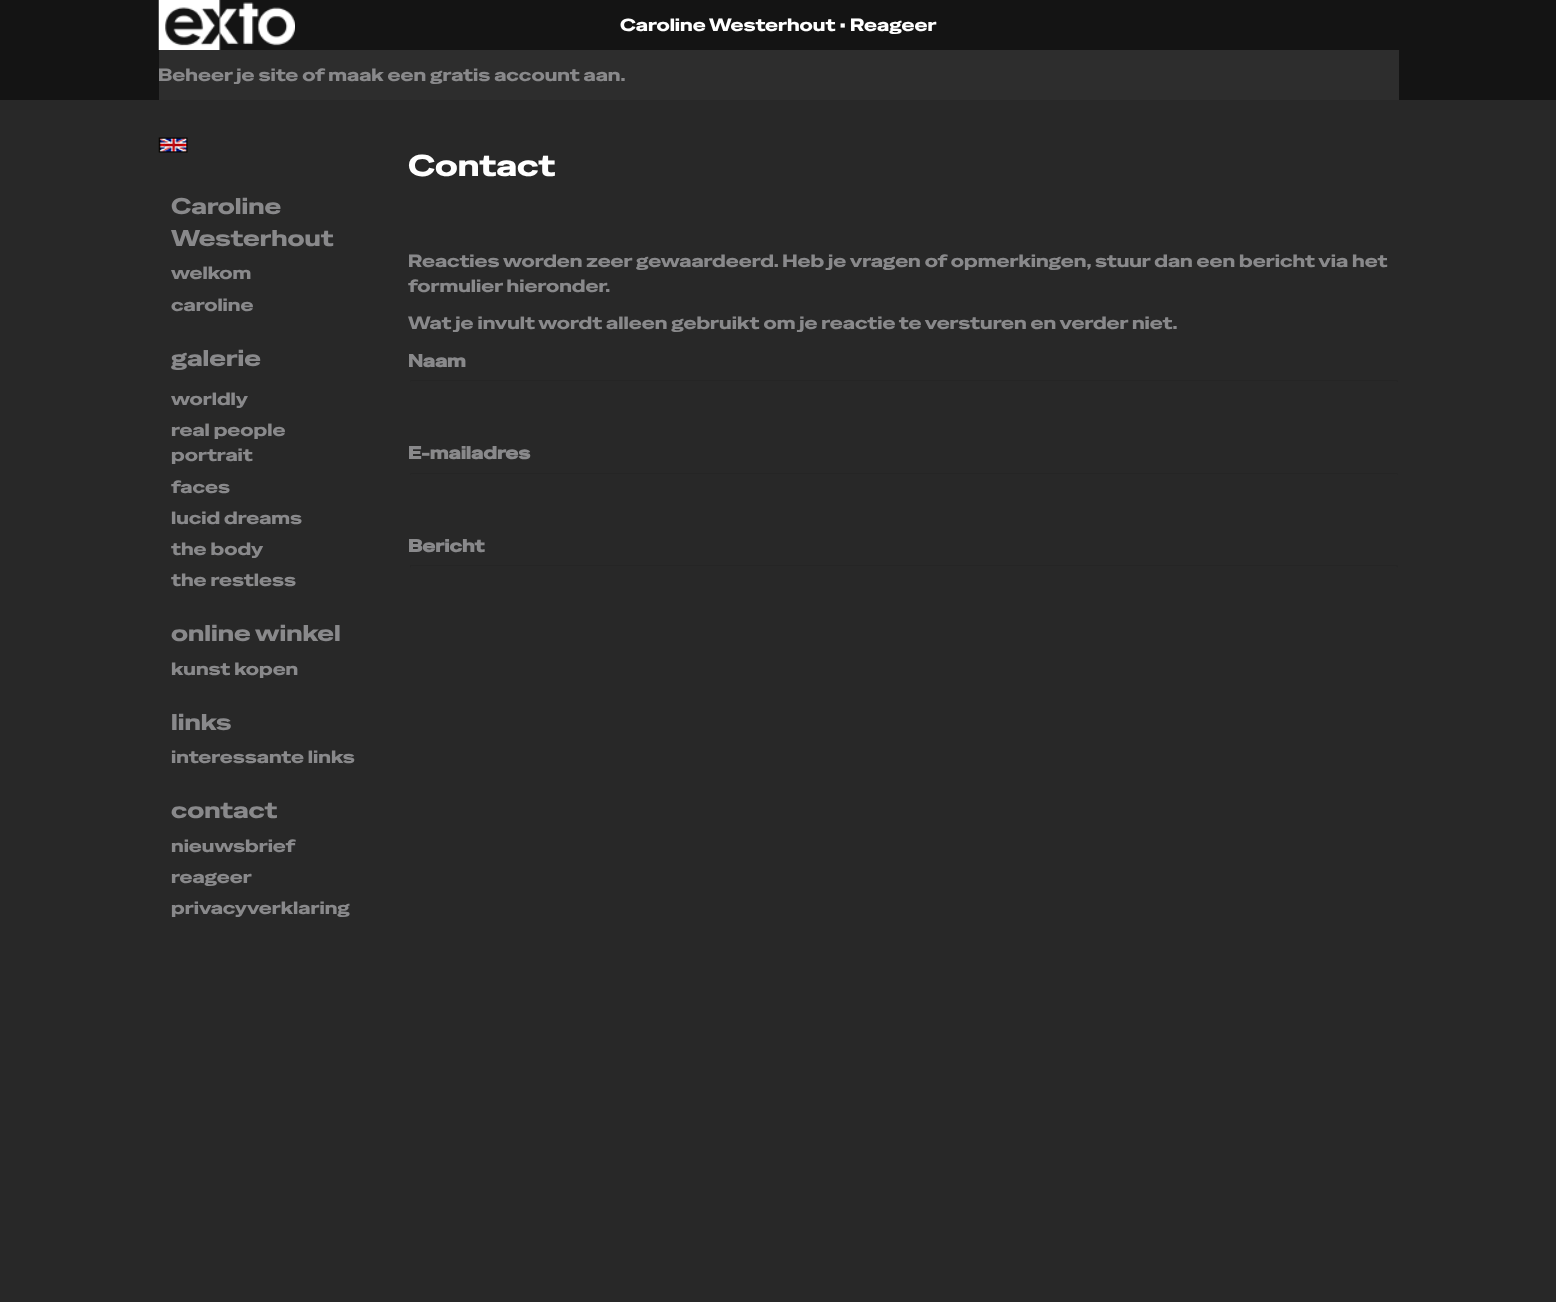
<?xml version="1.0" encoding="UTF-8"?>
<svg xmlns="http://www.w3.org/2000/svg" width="1556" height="1302">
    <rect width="100%" height="100%" fill="#282828"/>
    <rect x="0" y="0" width="1556" height="100" fill="#141414"/>
    <image x="158" y="0" width="137" height="50" href="img_01.png"/>
    <text x="620" y="31" font-family="Special Gothic Expanded One" font-size="17.5" fill="#FFFFFF">Caroline Westerhout • Reageer</text>
    <rect x="159" y="50" width="1240" height="50" fill="#2D2D2D"/>
    <text x="158" y="81" font-family="Special Gothic Expanded One" font-size="17.5" fill="#89898B">Beheer je site of maak een gratis account aan.</text>
    <image x="158" y="137" width="30" height="16" href="img_02.png"/>
    <text font-family="Special Gothic Expanded One" font-size="22.5" fill="#89898B">
        <tspan x="171" y="214">Caroline</tspan>
        <tspan x="171" y="246">Westerhout</tspan>
    </text>
    <text font-family="Special Gothic Expanded One" font-size="17.5" fill="#89898B">
        <tspan x="171" y="279">welkom</tspan>
        <tspan x="171" y="311">caroline</tspan>
    </text>
    <text x="171" y="366" font-family="Special Gothic Expanded One" font-size="22.5" fill="#89898B">galerie</text>
    <text font-family="Special Gothic Expanded One" font-size="17.5" fill="#89898B">
        <tspan x="171" y="405">worldly</tspan>
        <tspan x="171" y="436">real people</tspan>
        <tspan x="171" y="461">portrait</tspan>
        <tspan x="171" y="493">faces</tspan>
        <tspan x="171" y="524">lucid dreams</tspan>
        <tspan x="171" y="555">the body</tspan>
        <tspan x="171" y="586">the restless</tspan>
    </text>
    <text x="171" y="641" font-family="Special Gothic Expanded One" font-size="22.5" fill="#89898B">online winkel</text>
    <text x="171" y="675" font-family="Special Gothic Expanded One" font-size="17.5" fill="#89898B">kunst kopen</text>
    <text x="171" y="730" font-family="Special Gothic Expanded One" font-size="22.5" fill="#89898B">links</text>
    <text x="171" y="763" font-family="Special Gothic Expanded One" font-size="17.5" fill="#89898B">interessante links</text>
    <text x="171" y="818" font-family="Special Gothic Expanded One" font-size="22.5" fill="#89898B">contact</text>
    <text font-family="Special Gothic Expanded One" font-size="17.5" fill="#89898B">
        <tspan x="171" y="852">nieuwsbrief</tspan>
        <tspan x="171" y="883">reageer</tspan>
        <tspan x="171" y="914">privacyverklaring</tspan>
    </text>
    <text x="408" y="176" font-family="Special Gothic Expanded One" font-size="30" fill="#FFFFFF">Contact</text>
    <text font-family="Special Gothic Expanded One" font-size="17.5" fill="#89898B">
        <tspan x="408" y="267">Reacties worden zeer gewaardeerd. Heb je vragen of opmerkingen, stuur dan een bericht via het</tspan>
        <tspan x="408" y="292">formulier hieronder.</tspan>
    </text>
    <text x="408" y="329" font-family="Special Gothic Expanded One" font-size="17.5" fill="#89898B">Wat je invult wordt alleen gebruikt om je reactie te versturen en verder niet.</text>
    <text x="408" y="367" font-family="Special Gothic Expanded One" font-size="17.5" font-weight="700" fill="#89898B">Naam</text>
    <path d="M 411 381 H 1396 L 1398 382 V 381 L 1397 380 H 411 L 410 381 V 382 Z" fill="#252525"/>
    <text x="408" y="459" font-family="Special Gothic Expanded One" font-size="17.5" font-weight="700" fill="#89898B">E-mailadres</text>
    <path d="M 411 474 H 1396 C 1397 474 1398 474 1398 475 V 474 L 1397 473 H 411 L 410 474 V 475 Z" fill="#252525"/>
    <text x="408" y="552" font-family="Special Gothic Expanded One" font-size="17.5" font-weight="700" fill="#89898B">Bericht</text>
    <path d="M 411 566 H 1396 C 1397 566 1398 567 1398 568 V 566 L 1397 565 H 410 V 568 Z" fill="#252525"/>
</svg>
